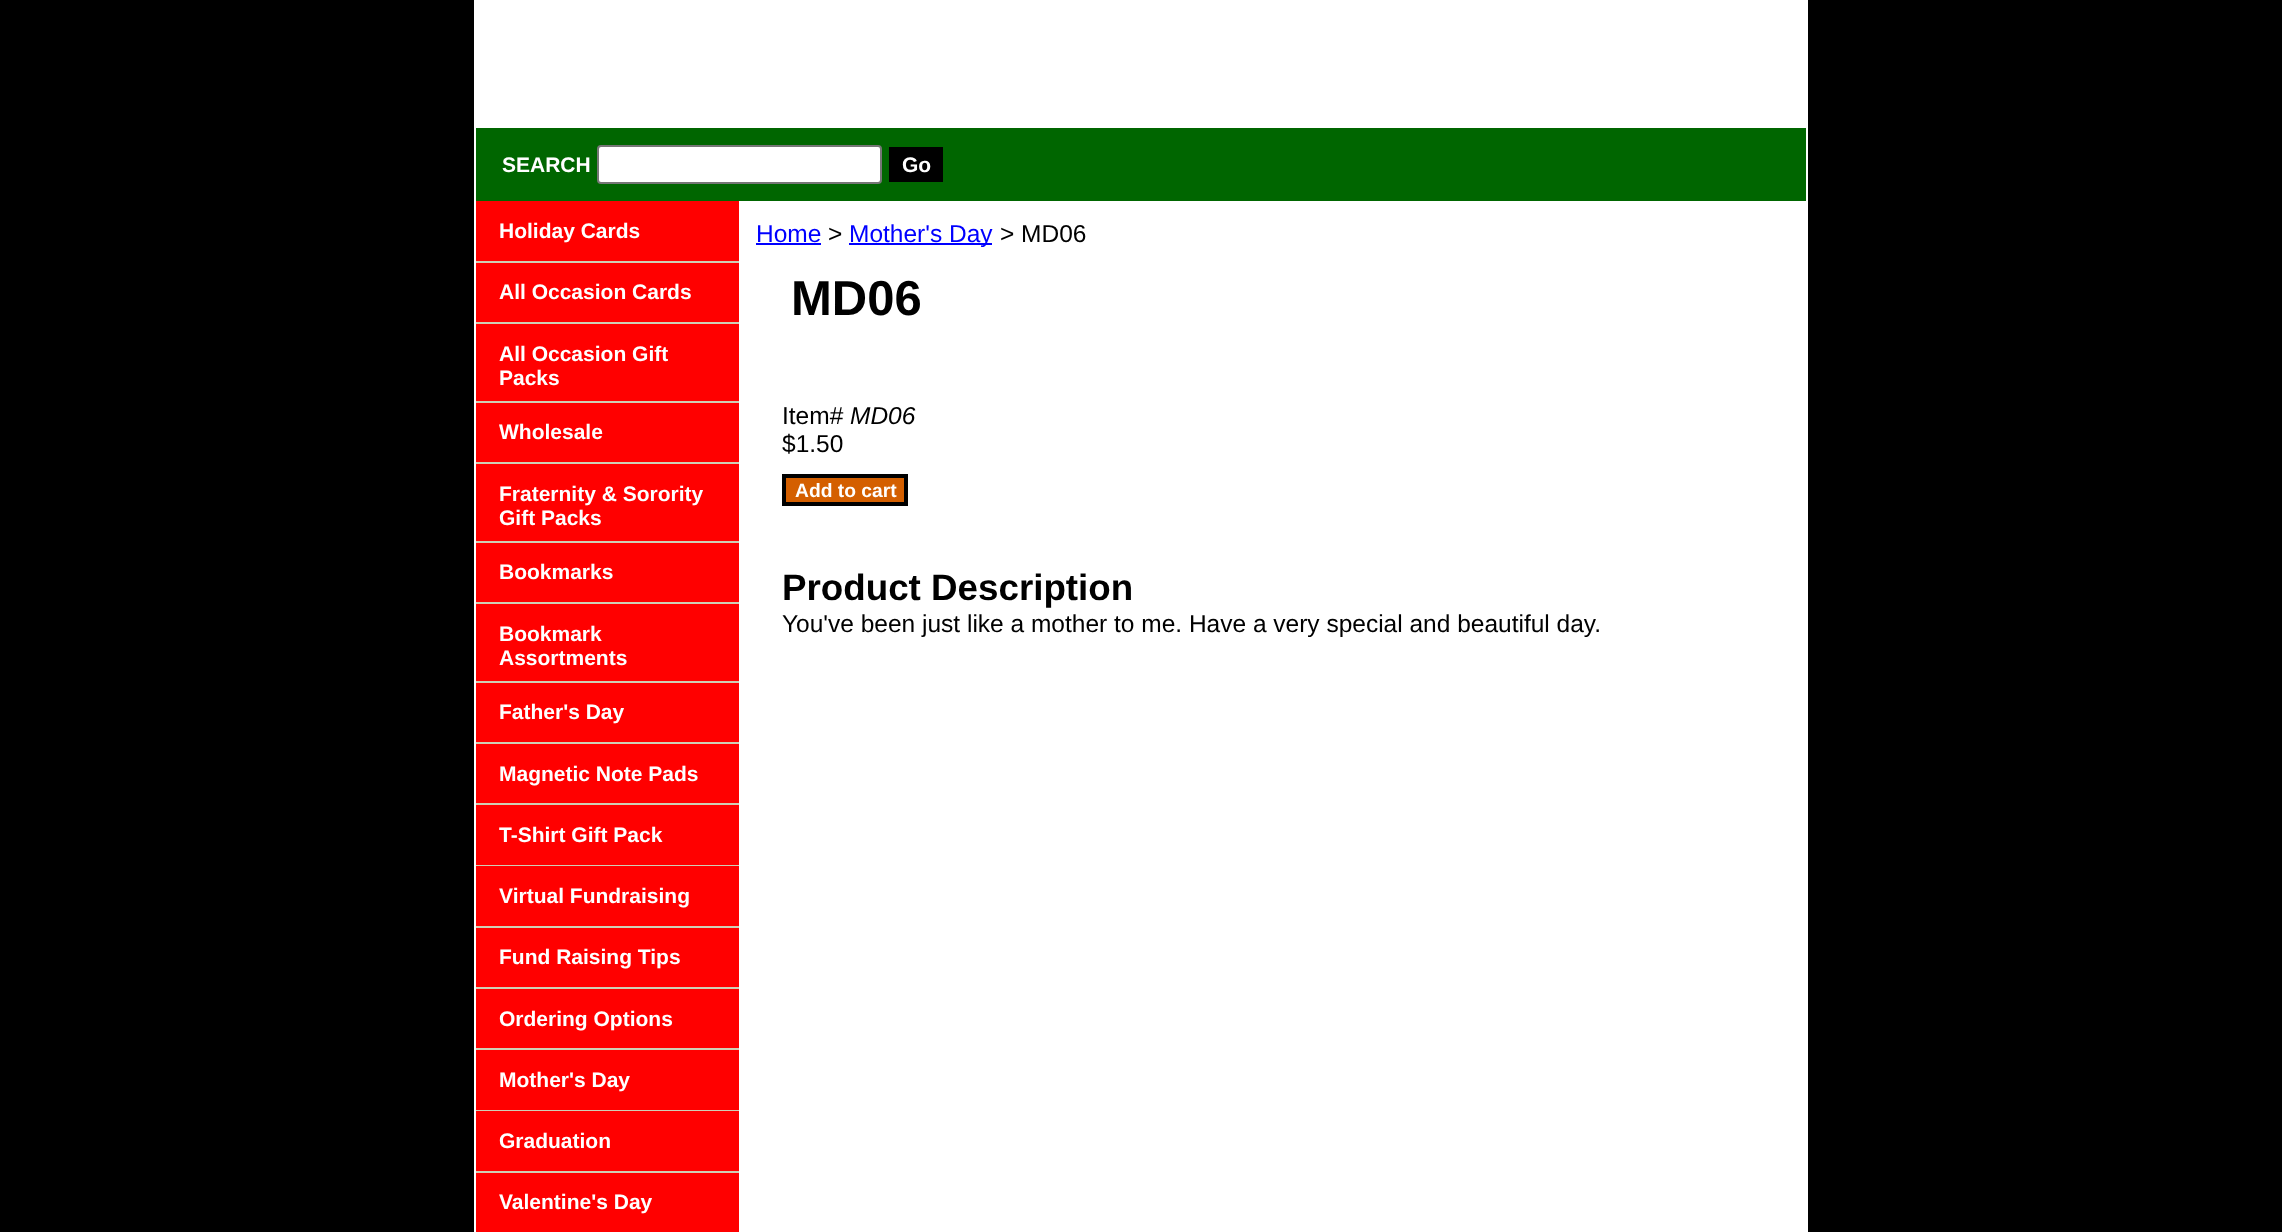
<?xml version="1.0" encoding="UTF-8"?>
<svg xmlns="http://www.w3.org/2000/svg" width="2282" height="1232">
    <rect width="100%" height="100%" fill="#000000"/>
    <rect x="474" y="0" width="1334" height="1232" fill="#FFFFFF"/>
    <rect x="476" y="128" width="1330" height="73" fill="#006600"/>
    <text x="502" y="172" font-family="Liberation Sans" font-size="21" font-weight="700" fill="#FFFFFF">SEARCH</text>
    <rect x="598" y="146" width="283" height="37" rx="3" fill="#FFFFFF" stroke="#767676" stroke-width="2"/>
    <rect x="889" y="147" width="54" height="35" fill="#000000"/>
    <text x="902" y="172" font-family="Liberation Sans" font-size="21" font-weight="700" fill="#FFFFFF">Go</text>
    <rect x="476" y="201" width="263" height="1031" fill="#FF0000"/>
    <rect x="476" y="261" width="263" height="2" fill="#CFCFB5"/>
    <text x="499" y="238" font-family="Liberation Sans" font-size="21" font-weight="700" fill="#FFFFFF">Holiday Cards</text>
    <rect x="476" y="322" width="263" height="2" fill="#CFCFB5"/>
    <text x="499" y="299" font-family="Liberation Sans" font-size="21" font-weight="700" fill="#FFFFFF">All Occasion Cards</text>
    <rect x="476" y="401" width="263" height="2" fill="#CFCFB5"/>
    <text font-family="Liberation Sans" font-size="21" font-weight="700" fill="#FFFFFF">
        <tspan x="499" y="361">All Occasion Gift</tspan>
        <tspan x="499" y="385">Packs</tspan>
    </text>
    <rect x="476" y="462" width="263" height="2" fill="#CFCFB5"/>
    <text x="499" y="439" font-family="Liberation Sans" font-size="21" font-weight="700" fill="#FFFFFF">Wholesale</text>
    <rect x="476" y="541" width="263" height="2" fill="#CFCFB5"/>
    <text font-family="Liberation Sans" font-size="21" font-weight="700" fill="#FFFFFF">
        <tspan x="499" y="501">Fraternity &amp; Sorority</tspan>
        <tspan x="499" y="525">Gift Packs</tspan>
    </text>
    <rect x="476" y="602" width="263" height="2" fill="#CFCFB5"/>
    <text x="499" y="579" font-family="Liberation Sans" font-size="21" font-weight="700" fill="#FFFFFF">Bookmarks</text>
    <rect x="476" y="681" width="263" height="2" fill="#CFCFB5"/>
    <text font-family="Liberation Sans" font-size="21" font-weight="700" fill="#FFFFFF">
        <tspan x="499" y="641">Bookmark</tspan>
        <tspan x="499" y="665">Assortments</tspan>
    </text>
    <rect x="476" y="742" width="263" height="2" fill="#CFCFB5"/>
    <text x="499" y="719" font-family="Liberation Sans" font-size="21" font-weight="700" fill="#FFFFFF">Father's Day</text>
    <rect x="476" y="803" width="263" height="2" fill="#CFCFB5"/>
    <text x="499" y="781" font-family="Liberation Sans" font-size="21" font-weight="700" fill="#FFFFFF">Magnetic Note Pads</text>
    <rect x="476" y="865" width="263" height="1" fill="#CFCFB5"/>
    <text x="499" y="842" font-family="Liberation Sans" font-size="21" font-weight="700" fill="#FFFFFF">T-Shirt Gift Pack</text>
    <rect x="476" y="926" width="263" height="2" fill="#CFCFB5"/>
    <text x="499" y="903" font-family="Liberation Sans" font-size="21" font-weight="700" fill="#FFFFFF">Virtual Fundraising</text>
    <rect x="476" y="987" width="263" height="2" fill="#CFCFB5"/>
    <text x="499" y="964" font-family="Liberation Sans" font-size="21" font-weight="700" fill="#FFFFFF">Fund Raising Tips</text>
    <rect x="476" y="1048" width="263" height="2" fill="#CFCFB5"/>
    <text x="499" y="1026" font-family="Liberation Sans" font-size="21" font-weight="700" fill="#FFFFFF">Ordering Options</text>
    <rect x="476" y="1110" width="263" height="1" fill="#CFCFB5"/>
    <text x="499" y="1087" font-family="Liberation Sans" font-size="21" font-weight="700" fill="#FFFFFF">Mother's Day</text>
    <rect x="476" y="1171" width="263" height="2" fill="#CFCFB5"/>
    <text x="499" y="1148" font-family="Liberation Sans" font-size="21" font-weight="700" fill="#FFFFFF">Graduation</text>
    <text x="499" y="1209" font-family="Liberation Sans" font-size="21" font-weight="700" fill="#FFFFFF">Valentine's Day</text>
    <text x="756" y="242" font-family="Liberation Sans" font-size="24.5" fill="#0000FF">Home</text>
    <rect x="756" y="243" width="65" height="2" fill="#0000FF"/>
    <text x="828" y="242" font-family="Liberation Sans" font-size="24.5" fill="#000000">&gt;</text>
    <rect x="849" y="243" width="143" height="2" fill="#0000FF"/>
    <text x="849" y="242" font-family="Liberation Sans" font-size="24.5" fill="#0000FF">Mother's Day</text>
    <text x="1000" y="242" font-family="Liberation Sans" font-size="24.5" fill="#000000">&gt; MD06</text>
    <text x="791" y="315" font-family="Liberation Sans" font-size="49" font-weight="700" fill="#000000">MD06</text>
    <text x="782" y="424" font-family="Liberation Sans" font-size="24.5" fill="#000000">Item#</text>
    <text x="850" y="424" font-family="Liberation Sans" font-size="24.5" font-style="italic" fill="#000000">MD06</text>
    <text x="782" y="452" font-family="Liberation Sans" font-size="24.5" fill="#000000">$1.50</text>
    <rect x="784" y="476" width="122" height="28" fill="#D45F00" stroke="#000000" stroke-width="4"/>
    <text x="795" y="497" font-family="Liberation Sans" font-size="19.25" font-weight="700" fill="#FFFFFF">Add to cart</text>
    <text x="782" y="600" font-family="Liberation Sans" font-size="36.75" font-weight="700" fill="#000000">Product Description</text>
    <text x="782" y="632" font-family="Liberation Sans" font-size="24.5" fill="#000000">You've been just like a mother to me. Have a very special and beautiful day.</text>
</svg>
